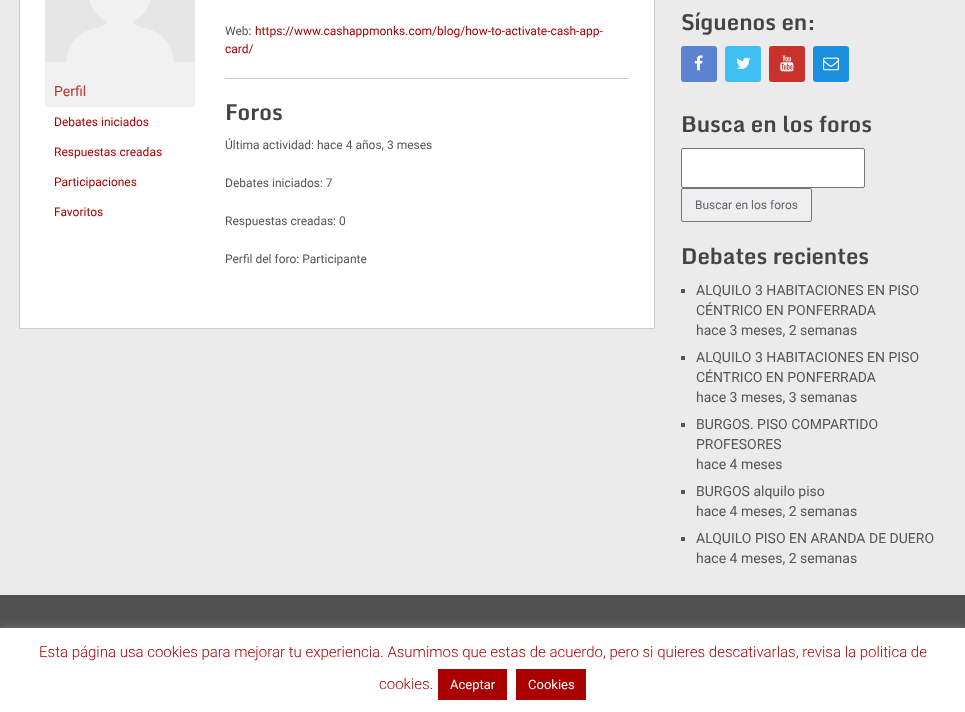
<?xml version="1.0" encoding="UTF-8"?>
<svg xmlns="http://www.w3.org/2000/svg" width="965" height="712">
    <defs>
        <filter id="blur1" x="-50%" y="-200%" width="200%" height="500%"><feGaussianBlur stdDeviation="5"/></filter>
    </defs>
    <rect width="100%" height="100%" fill="#EBEBEB"/>
    <rect x="20" y="0" width="634" height="328" fill="#FFFFFF"/>
    <rect x="45" y="62" width="150" height="45" fill="#F1F1F1"/>
    <rect x="19.5" y="-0.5" width="635" height="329" fill="none" stroke="#CDCDCD"/>
    <image x="45" y="0" width="150" height="62" href="img_01.png"/>
    <text x="54" y="96" font-family="Roboto" font-size="14" fill="#BA3434">Perfil</text>
    <text x="54" y="126" font-family="Roboto" font-size="12" fill="#A90101">Debates iniciados</text>
    <text x="54" y="156" font-family="Roboto" font-size="12" fill="#A90101">Respuestas creadas</text>
    <text x="54" y="186" font-family="Roboto" font-size="12" fill="#A90101">Participaciones</text>
    <text x="54" y="216" font-family="Roboto" font-size="12" fill="#A90101">Favoritos</text>
    <text x="225" y="35" font-family="Roboto" font-size="12" fill="#555555">Web:</text>
    <text x="255" y="35" font-family="Roboto" font-size="12" fill="#A90101">https://www.cashappmonks.com/blog/how-to-activate-cash-app-</text>
    <text x="225" y="53" font-family="Roboto" font-size="12" fill="#A90101">card/</text>
    <rect x="225" y="78" width="404" height="1" fill="#CCCCCC"/>
    <text x="225" y="120" font-family="Monda" font-size="22" font-weight="700" fill="#444444">Foros</text>
    <text x="225" y="149" font-family="Roboto" font-size="12" fill="#555555">Última actividad: hace 4 años, 3 meses</text>
    <text x="225" y="187" font-family="Roboto" font-size="12" fill="#555555">Debates iniciados: 7</text>
    <text x="225" y="225" font-family="Roboto" font-size="12" fill="#555555">Respuestas creadas: 0</text>
    <text x="225" y="263" font-family="Roboto" font-size="12" fill="#555555">Perfil del foro: Participante</text>
    <text x="681" y="30" font-family="Monda" font-size="22" font-weight="700" fill="#444444">Síguenos en:</text>
    <rect x="681" y="46" width="36" height="36" rx="3" fill="#5D82D1"/>
    <image x="694" y="55" width="9" height="16" href="img_02.png"/>
    <rect x="725" y="46" width="36" height="36" rx="3" fill="#40BFF5"/>
    <image x="736" y="57" width="15" height="13" href="img_03.png"/>
    <rect x="769" y="46" width="36" height="36" rx="3" fill="#C9322B"/>
    <image x="780" y="55" width="14" height="17" href="img_04.png"/>
    <rect x="813" y="46" width="36" height="36" rx="3" fill="#1D90DD"/>
    <image x="823" y="57" width="16" height="14" href="img_05.png"/>
    <text x="681" y="132" font-family="Monda" font-size="22" font-weight="700" fill="#444444">Busca en los foros</text>
    <rect x="681.5" y="148.5" width="183" height="39" rx="1.5" fill="#FFFFFF" stroke="#767676"/>
    <rect x="681.5" y="188.5" width="130" height="33" rx="1.5" fill="#EFEFEF" stroke="#767676"/>
    <text x="695" y="209" font-family="Roboto" font-size="12" fill="#5E656D">Buscar en los foros</text>
    <text x="681" y="264" font-family="Monda" font-size="22" font-weight="700" fill="#444444">Debates recientes</text>
    <rect x="681" y="289" width="4" height="4" fill="#555555"/>
    <text font-family="Roboto" font-size="14" fill="#555555">
        <tspan x="696" y="295">ALQUILO 3 HABITACIONES EN PISO</tspan>
        <tspan x="696" y="315">CÉNTRICO EN PONFERRADA</tspan>
        <tspan x="696" y="335">hace 3 meses, 2 semanas</tspan>
    </text>
    <rect x="681" y="356" width="4" height="4" fill="#555555"/>
    <text font-family="Roboto" font-size="14" fill="#555555">
        <tspan x="696" y="362">ALQUILO 3 HABITACIONES EN PISO</tspan>
        <tspan x="696" y="382">CÉNTRICO EN PONFERRADA</tspan>
        <tspan x="696" y="402">hace 3 meses, 3 semanas</tspan>
    </text>
    <rect x="681" y="423" width="4" height="4" fill="#555555"/>
    <text font-family="Roboto" font-size="14" fill="#555555">
        <tspan x="696" y="429">BURGOS. PISO COMPARTIDO</tspan>
        <tspan x="696" y="449">PROFESORES</tspan>
        <tspan x="696" y="469">hace 4 meses</tspan>
    </text>
    <rect x="681" y="490" width="4" height="4" fill="#555555"/>
    <text font-family="Roboto" font-size="14" fill="#555555">
        <tspan x="696" y="496">BURGOS alquilo piso</tspan>
        <tspan x="696" y="516">hace 4 meses, 2 semanas</tspan>
    </text>
    <rect x="681" y="537" width="4" height="4" fill="#555555"/>
    <text font-family="Roboto" font-size="14" fill="#555555">
        <tspan x="696" y="543">ALQUILO PISO EN ARANDA DE DUERO</tspan>
        <tspan x="696" y="563">hace 4 meses, 2 semanas</tspan>
    </text>
    <rect x="0" y="595" width="965" height="33" fill="#515151"/>
    <rect x="0" y="627" width="965" height="84" fill="#ACABAB" fill-opacity="0.3" filter="url(#blur1)"/>
    <rect x="0" y="628" width="965" height="84" fill="#FFFFFF"/>
    <text x="39" y="657" font-family="Roboto" font-size="15" font-weight="300" fill="#A90101">Esta página usa cookies para mejorar tu experiencia. Asumimos que estas de acuerdo, pero si quieres descativarlas, revisa la politica de</text>
    <text x="379" y="689" font-family="Roboto" font-size="15" font-weight="300" fill="#A90101">cookies.</text>
    <rect x="438" y="669" width="69" height="31" fill="#A90101"/>
    <text x="450" y="689" font-family="Roboto" font-size="13" fill="#FFFFFF">Aceptar</text>
    <rect x="516" y="669" width="70" height="31" fill="#A90101"/>
    <text x="528" y="689" font-family="Roboto" font-size="13" fill="#FFFFFF">Cookies</text>
</svg>
